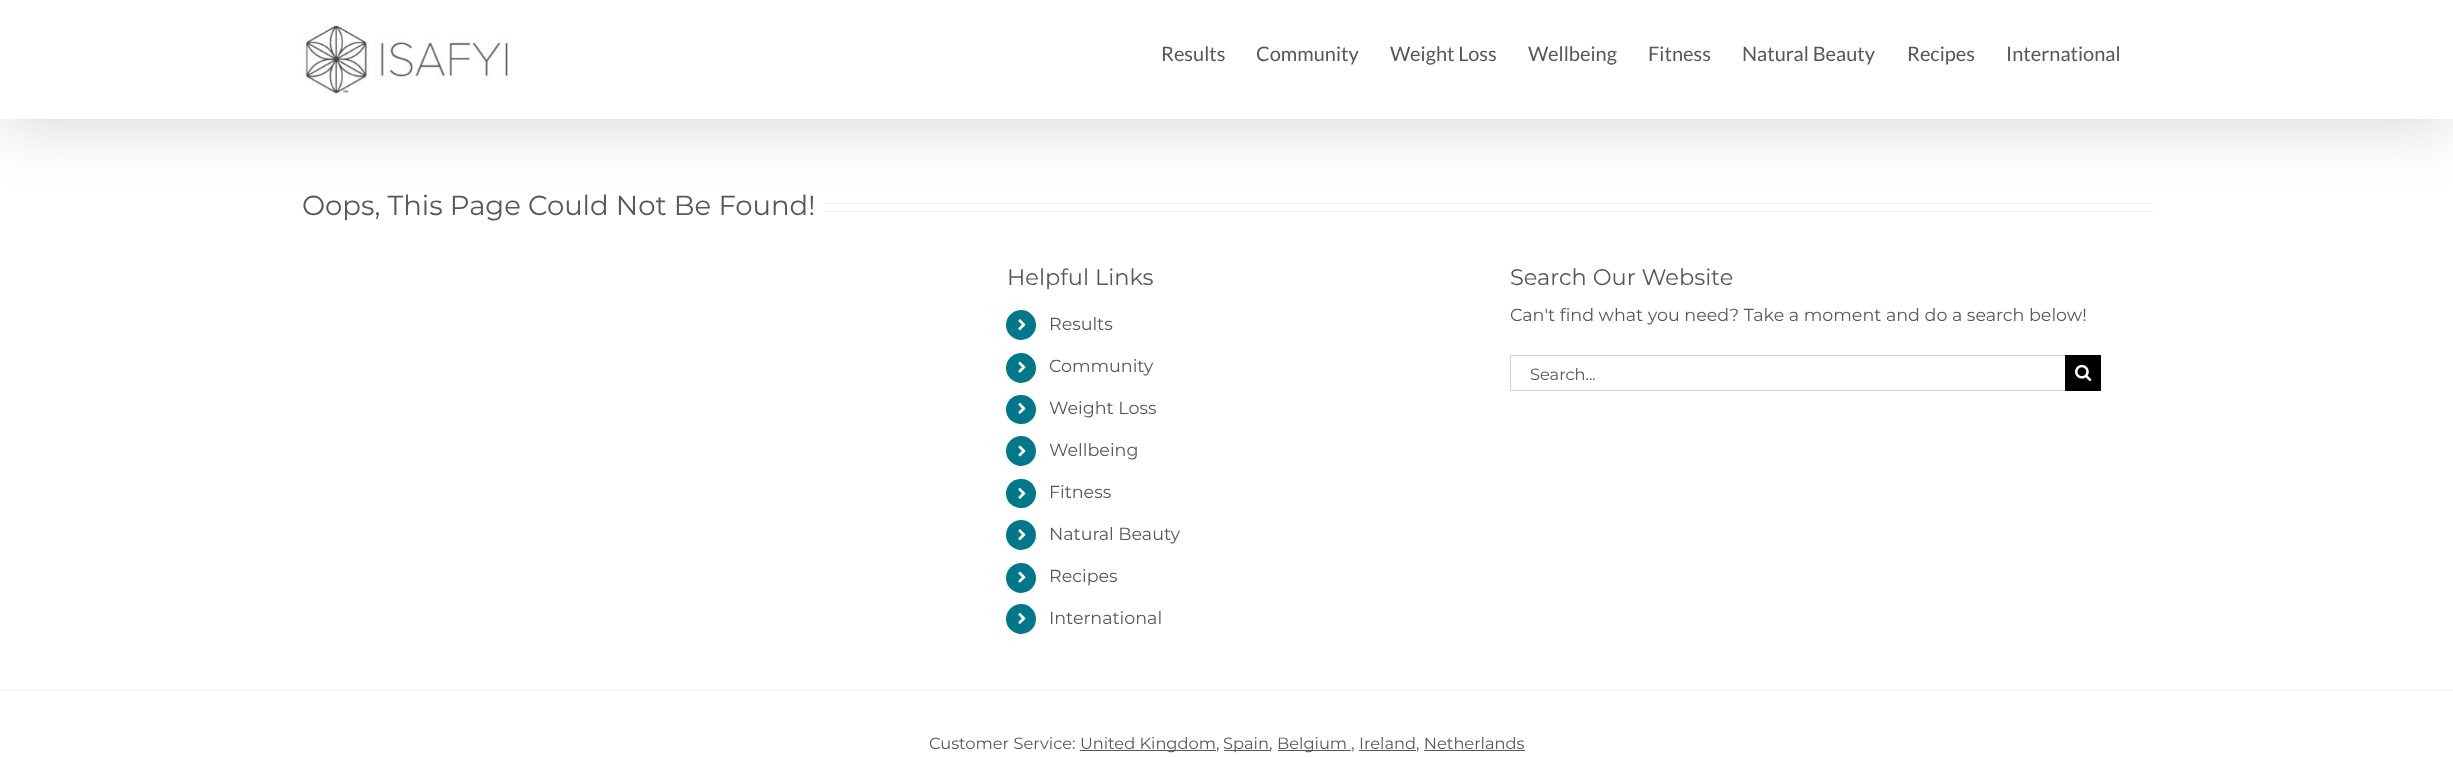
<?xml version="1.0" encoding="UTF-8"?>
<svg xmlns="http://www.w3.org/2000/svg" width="2453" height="757">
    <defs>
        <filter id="blur1" x="-50%" y="-200%" width="200%" height="500%"><feGaussianBlur stdDeviation="31"/></filter>
    </defs>
    <rect width="100%" height="100%" fill="#FFFFFF"/>
    <rect x="824" y="203" width="1329" height="1" fill="#EEEFEE"/>
    <rect x="824" y="211" width="1329" height="1" fill="#EEEFEE"/>
    <rect x="3" y="15" width="2448" height="114" fill="#000000" fill-opacity="0.14" filter="url(#blur1)"/>
    <rect x="0" y="0" width="2453" height="119" fill="#FFFFFF"/>
    <image x="303" y="25" width="205" height="69" href="img_01.png"/>
    <text x="1161" y="61" font-family="Lato" font-size="20" fill="#54585A">Results</text>
    <text x="1256" y="61" font-family="Lato" font-size="20" fill="#54585A">Community</text>
    <text x="1390" y="61" font-family="Lato" font-size="20" fill="#54585A">Weight Loss</text>
    <text x="1528" y="61" font-family="Lato" font-size="20" fill="#54585A">Wellbeing</text>
    <text x="1648" y="61" font-family="Lato" font-size="20" fill="#54585A">Fitness</text>
    <text x="1742" y="61" font-family="Lato" font-size="20" fill="#54585A">Natural Beauty</text>
    <text x="1907" y="61" font-family="Lato" font-size="20" fill="#54585A">Recipes</text>
    <text x="2006" y="61" font-family="Lato" font-size="20" fill="#54585A">International</text>
    <text x="302" y="215" font-family="Montserrat" font-size="27.5" fill="#54585A">Oops, This Page Could Not Be Found!</text>
    <text x="1007" y="285" font-family="Montserrat" font-size="22.5" fill="#54585A">Helpful Links</text>
    <circle cx="1021" cy="325" r="15" fill="#00778B"/>
    <image x="1018" y="319" width="8" height="12" href="img_02.png"/>
    <text x="1049" y="330" font-family="Montserrat" font-size="17.5" fill="#54585A">Results</text>
    <circle cx="1021" cy="368" r="15" fill="#00778B"/>
    <image x="1018" y="361" width="8" height="12" href="img_03.png"/>
    <text x="1049" y="372" font-family="Montserrat" font-size="17.5" fill="#54585A">Community</text>
    <rect x="1006" y="395" width="30" height="29" rx="14.5" fill="#00778B"/>
    <image x="1018" y="403" width="8" height="11" href="img_04.png"/>
    <text x="1049" y="414" font-family="Montserrat" font-size="17.5" fill="#54585A">Weight Loss</text>
    <circle cx="1021" cy="451" r="15" fill="#00778B"/>
    <image x="1018" y="445" width="8" height="12" href="img_05.png"/>
    <text x="1049" y="456" font-family="Montserrat" font-size="17.5" fill="#54585A">Wellbeing</text>
    <rect x="1006" y="479" width="30" height="29" rx="14.5" fill="#00778B"/>
    <image x="1018" y="488" width="8" height="11" href="img_04.png"/>
    <text x="1049" y="498" font-family="Montserrat" font-size="17.5" fill="#54585A">Fitness</text>
    <circle cx="1021" cy="535" r="15" fill="#00778B"/>
    <image x="1018" y="529" width="8" height="12" href="img_02.png"/>
    <text x="1049" y="540" font-family="Montserrat" font-size="17.5" fill="#54585A">Natural Beauty</text>
    <circle cx="1021" cy="578" r="15" fill="#00778B"/>
    <image x="1018" y="571" width="8" height="12" href="img_03.png"/>
    <text x="1049" y="582" font-family="Montserrat" font-size="17.5" fill="#54585A">Recipes</text>
    <circle cx="1021" cy="619" r="15" fill="#00778B"/>
    <image x="1018" y="613" width="8" height="11" href="img_04.png"/>
    <text x="1049" y="624" font-family="Montserrat" font-size="17.5" fill="#54585A">International</text>
    <text x="1510" y="285" font-family="Montserrat" font-size="22.5" fill="#54585A">Search Our Website</text>
    <text x="1510" y="321" font-family="Montserrat" font-size="17.5" fill="#54585A">Can't find what you need? Take a moment and do a search below!</text>
    <rect x="1510" y="355" width="555" height="1" fill="#D2D2D2"/>
    <rect x="1510" y="390" width="555" height="1" fill="#D2D2D2"/>
    <rect x="1510" y="355" width="1" height="36" fill="#D2D2D2"/>
    <text x="1530" y="380" font-family="Montserrat" font-size="16.25" fill="#54585A">Search...</text>
    <rect x="2065" y="355" width="36" height="36" fill="#000000"/>
    <image x="2075" y="364" width="17" height="17" href="img_06.png"/>
    <rect x="0" y="690" width="2453" height="1" fill="#EEEFEE"/>
    <text x="929" y="749" font-family="Montserrat" font-size="16.25" fill="#54585A">Customer Service:</text>
    <rect x="1080" y="750" width="136" height="1" fill="#55585A"/>
    <text x="1080" y="749" font-family="Montserrat" font-size="16.25" fill="#54585A">United Kingdom,</text>
    <rect x="1224" y="750" width="46" height="1" fill="#55585A"/>
    <text x="1223" y="749" font-family="Montserrat" font-size="16.25" fill="#54585A">Spain,</text>
    <rect x="1278" y="750" width="73" height="1" fill="#55585A"/>
    <text x="1277" y="749" font-family="Montserrat" font-size="16.25" fill="#54585A">Belgium , Ireland, Netherlands</text>
    <rect x="1359" y="750" width="57" height="1" fill="#55585A"/>
    <rect x="1424" y="750" width="101" height="1" fill="#55585A"/>
</svg>
